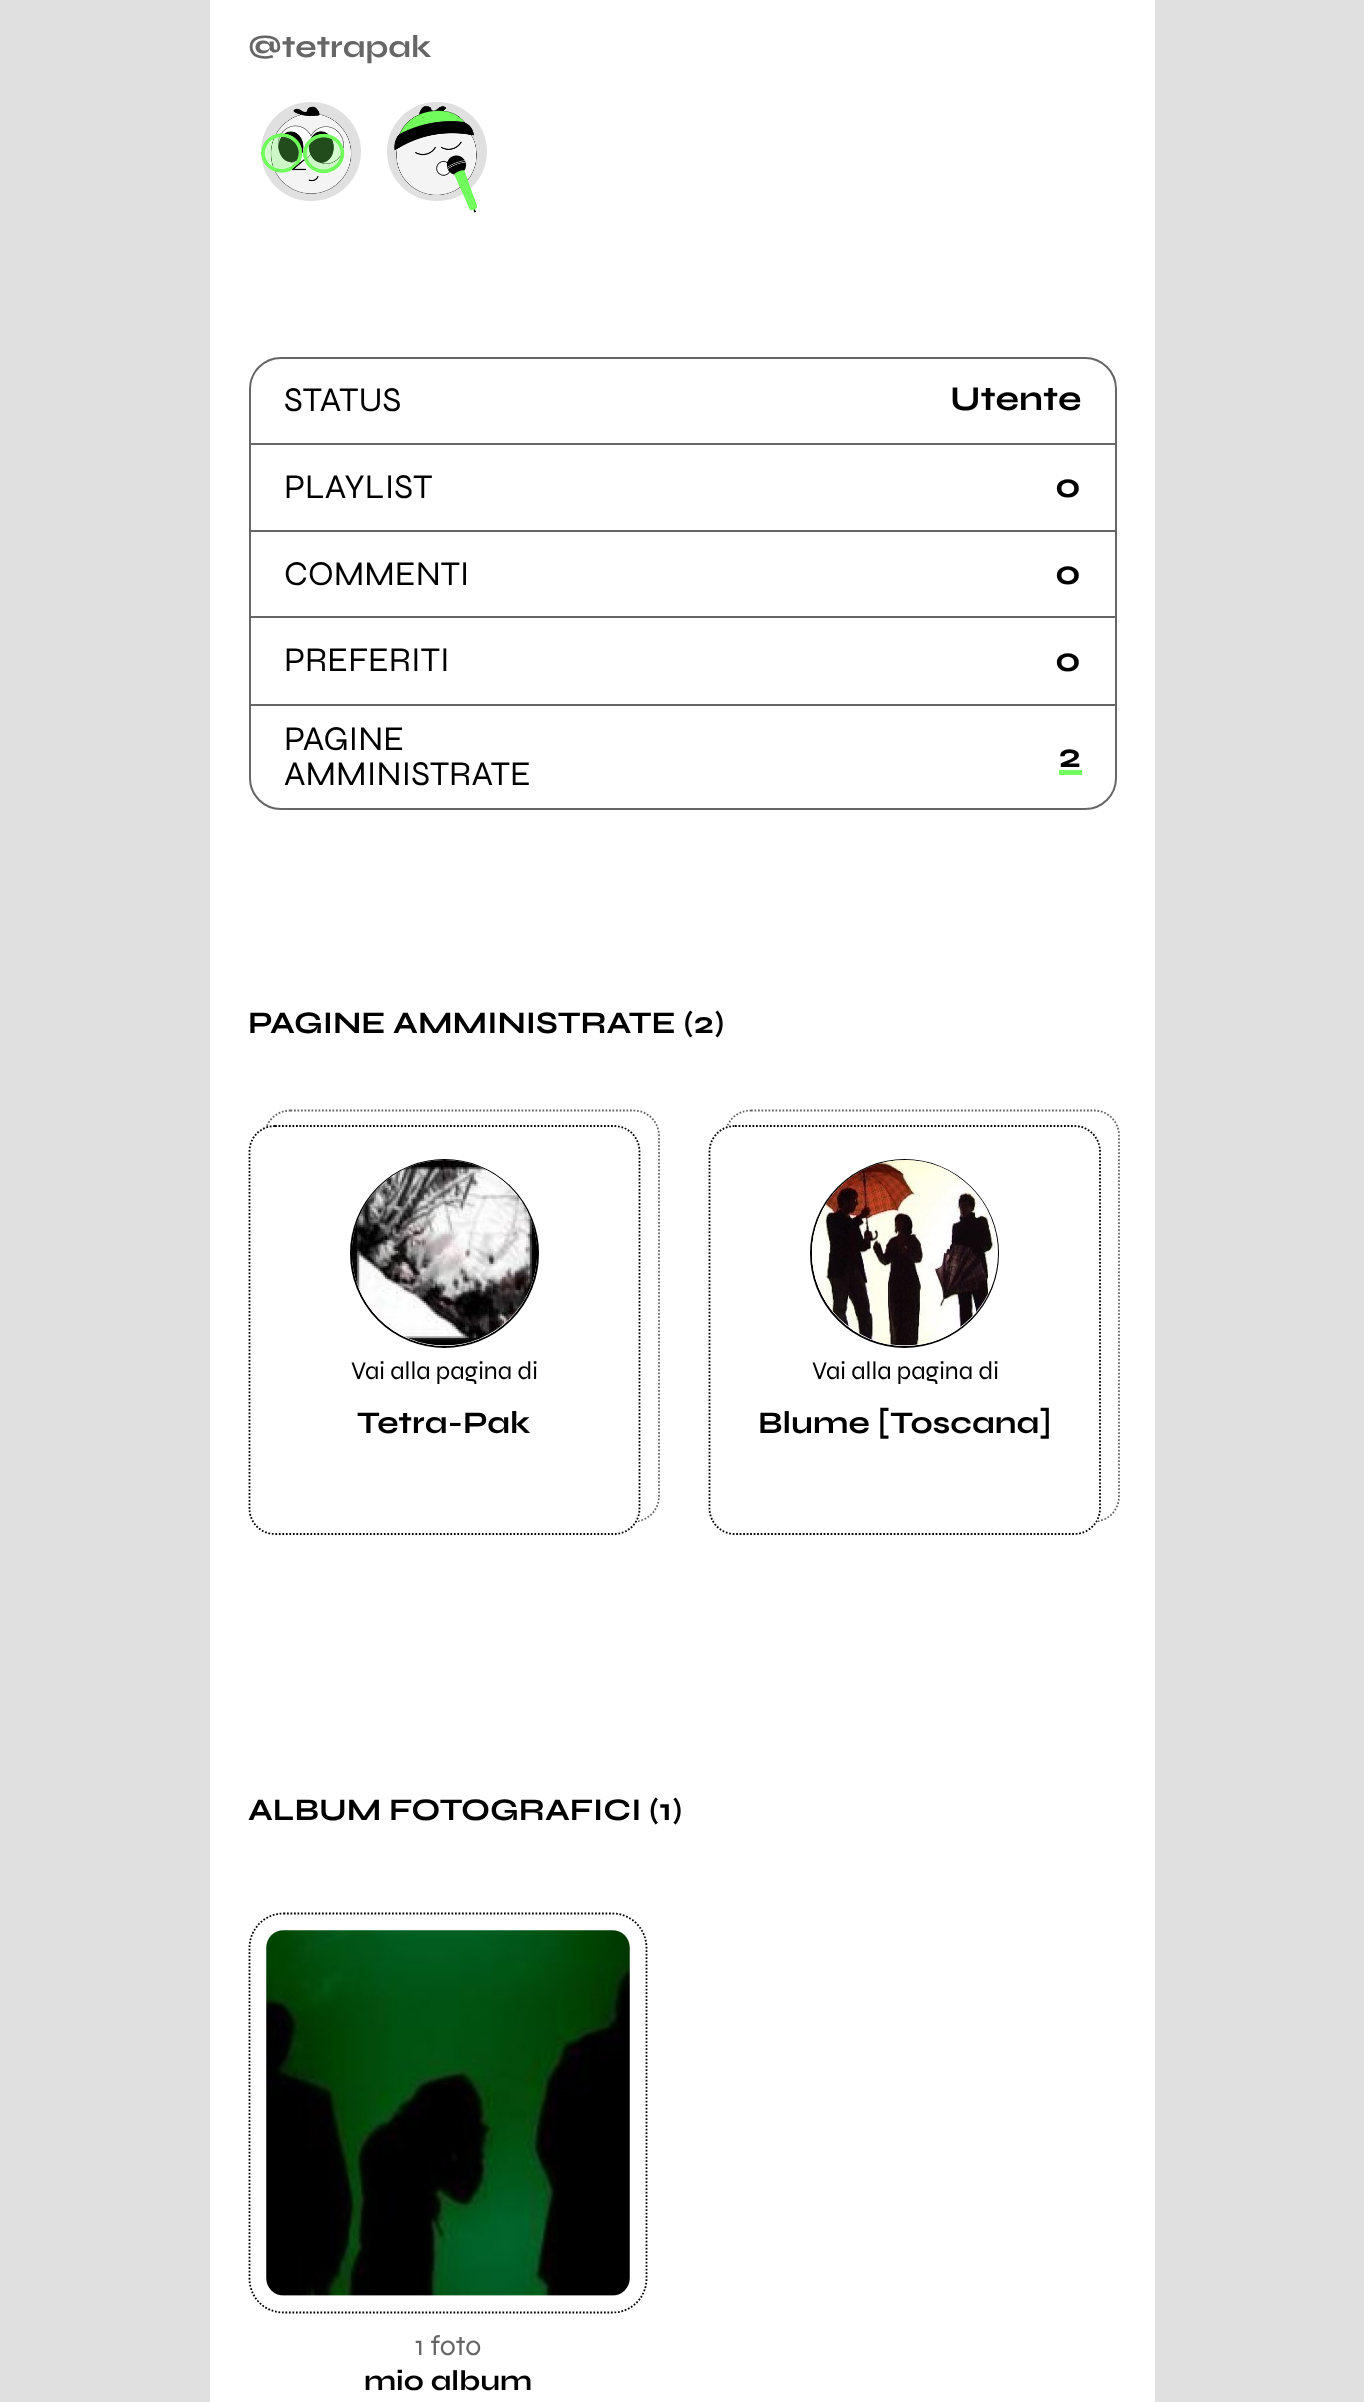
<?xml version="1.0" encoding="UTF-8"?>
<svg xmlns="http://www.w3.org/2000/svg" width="1364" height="2402">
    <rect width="100%" height="100%" fill="#E0E0E0"/>
    <rect x="210" y="0" width="945" height="2402" fill="#FFFFFF"/>
    <text x="248" y="57" font-family="Syne" font-size="31.5" font-weight="700" fill="#666666">@tetrapak</text>
    <rect x="261" y="102" width="100" height="99" rx="49.5" fill="#E0E0E0"/>
    <image x="261" y="106" width="91" height="88" href="img_01.png"/>
    <rect x="387" y="102" width="100" height="99" rx="49.5" fill="#E0E0E0"/>
    <image x="394" y="106" width="84" height="107" href="img_02.png"/>
    <rect x="250" y="358" width="866" height="451" rx="31" fill="none" stroke="#666666" stroke-width="2"/>
    <text x="284" y="411" font-family="Syne" font-size="34.75" fill="#000000">STATUS</text>
    <text x="950" y="410" font-family="Syne" font-size="34.75" font-weight="700" fill="#000000">Utente</text>
    <rect x="250" y="443" width="865" height="2" fill="#666666"/>
    <text x="284" y="498" font-family="Syne" font-size="34.75" fill="#000000">PLAYLIST</text>
    <text x="1055" y="497" font-family="Syne" font-size="34.75" font-weight="700" fill="#000000">0</text>
    <rect x="250" y="530" width="865" height="2" fill="#666666"/>
    <text x="284" y="585" font-family="Syne" font-size="34.75" fill="#000000">COMMENTI</text>
    <text x="1055" y="584" font-family="Syne" font-size="34.75" font-weight="700" fill="#000000">0</text>
    <rect x="250" y="616" width="865" height="2" fill="#666666"/>
    <text x="284" y="671" font-family="Syne" font-size="34.75" fill="#000000">PREFERITI</text>
    <text x="1055" y="671" font-family="Syne" font-size="34.75" font-weight="700" fill="#000000">0</text>
    <rect x="250" y="704" width="865" height="2" fill="#666666"/>
    <text font-family="Syne" font-size="34.75" fill="#000000">
        <tspan x="284" y="750">PAGINE</tspan>
        <tspan x="284" y="785">AMMINISTRATE</tspan>
    </text>
    <text x="1059" y="767" font-family="Syne" font-size="34.75" font-weight="700" fill="#000000">2</text>
    <rect x="1059" y="770" width="23" height="5" fill="#71FD5C"/>
    <text x="248" y="1033" font-family="Syne" font-size="31.5" font-weight="700" fill="#000000">PAGINE AMMINISTRATE (2)</text>
    <path d="M 290.5 1110.5 H 633.5 C 647.5 1110.5 659 1121.5 659 1136 V 1496 C 659 1510.5 647.5 1521.5 633.5 1521.5 H 290.5 C 276.5 1521.5 265 1510.5 265 1496 V 1136 C 265 1121.5 276.5 1110.5 290.5 1110.5 Z" fill="none" stroke="#666666" stroke-width="1.8" stroke-dasharray="1.75 1.75"/>
    <rect x="249" y="1125" width="392" height="410" rx="26" fill="#FFFFFF"/>
    <path d="M 275 1126 H 614 C 628.5 1126 639.5 1137.5 639.5 1151.5 V 1508.5 C 639.5 1522.5 628.5 1534 614 1534 H 275 C 260.5 1534 249.5 1522.5 249.5 1508.5 V 1151.5 C 249.5 1137.5 260.5 1126 275 1126 Z" fill="none" stroke="#000000" stroke-width="1.8" stroke-dasharray="1.75 1.75"/>
    <circle cx="444.5" cy="1253.5" r="93.5" fill="none" stroke="#000000" stroke-width="2"/>
    <rect x="352" y="1160" width="185" height="186" rx="92.5" fill="#FFFFFF"/>
    <image x="352" y="1160" width="185" height="186" href="img_03.png"/>
    <text x="351" y="1379" font-family="Syne" font-size="25.25" fill="#000000">Vai alla pagina di</text>
    <text x="357" y="1433" font-family="Syne" font-size="31.5" font-weight="700" fill="#000000">Tetra-Pak</text>
    <path d="M 751 1110.5 H 1094 C 1108 1110.5 1119 1121.5 1119 1136 V 1496 C 1119 1510.5 1108 1521.5 1094 1521.5 H 751 C 736.5 1521.5 725.5 1510.5 725.5 1496 V 1136 C 725.5 1121.5 736.5 1110.5 751 1110.5 Z" fill="none" stroke="#666666" stroke-width="1.8" stroke-dasharray="1.75 1.75"/>
    <rect x="709" y="1125" width="392" height="410" rx="26" fill="#FFFFFF"/>
    <path d="M 735 1126 H 1074.5 C 1088.5 1126 1100 1137.5 1100 1151.5 V 1508.5 C 1100 1522.5 1088.5 1534 1074.5 1534 H 735 C 721 1534 709.5 1522.5 709.5 1508.5 V 1151.5 C 709.5 1137.5 721 1126 735 1126 Z" fill="none" stroke="#000000" stroke-width="1.8" stroke-dasharray="1.75 1.75"/>
    <circle cx="904.5" cy="1253.5" r="93.5" fill="none" stroke="#000000" stroke-width="2"/>
    <circle cx="905" cy="1253" r="93" fill="#FFFFFF"/>
    <image x="812" y="1160" width="186" height="186" href="img_04.png"/>
    <text x="812" y="1379" font-family="Syne" font-size="25.25" fill="#000000">Vai alla pagina di</text>
    <text x="758" y="1433" font-family="Syne" font-size="31.5" font-weight="700" fill="#000000">Blume [Toscana]</text>
    <text x="248" y="1820" font-family="Syne" font-size="31.5" font-weight="700" fill="#000000">ALBUM FOTOGRAFICI (1)</text>
    <path d="M 283.5 1913.5 H 612.5 C 631.5 1913.5 646.5 1929 646.5 1948 V 2278.5 C 646.5 2297.5 631.5 2312.5 612.5 2312.5 H 283.5 C 264.5 2312.5 249.5 2297.5 249.5 2278.5 V 1948 C 249.5 1929 264.5 1913.5 283.5 1913.5 Z" fill="none" stroke="#000000" stroke-width="1.8" stroke-dasharray="1.75 1.75"/>
    <image x="266" y="1930" width="364" height="366" href="img_05.png"/>
    <text x="415" y="2355" font-family="Syne" font-size="28.5" fill="#666666">1 foto</text>
    <text x="364" y="2390" font-family="Syne" font-size="28.5" font-weight="700" fill="#000000">mio album</text>
</svg>
